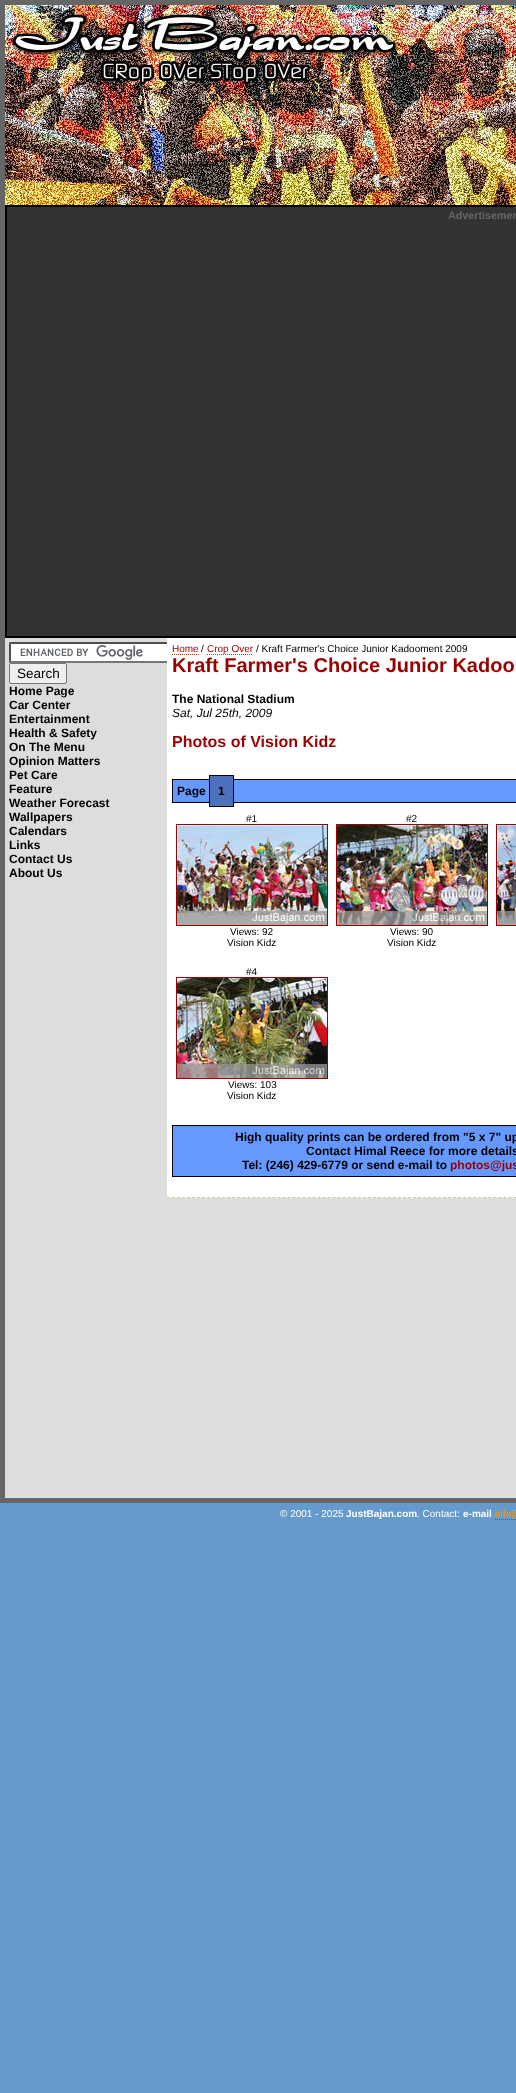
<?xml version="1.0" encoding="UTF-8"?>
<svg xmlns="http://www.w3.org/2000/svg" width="516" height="2093">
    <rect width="100%" height="100%" fill="#6699CC"/>
    <rect x="5" y="638" width="511" height="860" fill="#DDDDDD"/>
    <rect x="2.5" y="2.5" width="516" height="1498" fill="none" stroke="#666666" stroke-width="5"/>
    <image x="5" y="5" width="511" height="200" href="img_01.png"/>
    <rect x="6" y="206" width="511" height="431" fill="#333333" stroke="#000000" stroke-width="2"/>
    <text x="448" y="219" font-family="Liberation Sans" font-size="10.75" font-weight="700" fill="#666666">Advertisemen</text>
    <rect x="9" y="642" width="158" height="21" fill="#FFFFFF"/>
    <image x="20" y="645" width="123" height="15" href="img_02.png"/>
    <path d="M 9 642 H 194 L 192 644 H 11 Z" fill="#4F4F4F"/>
    <path d="M 194 663 H 9 L 11 661 H 192 Z" fill="#767676"/>
    <path d="M 9 663 V 642 L 11 644 V 661 Z" fill="#4F4F4F"/>
    <rect x="9.5" y="663.5" width="57" height="20" rx="1.5" fill="#EFEFEF" stroke="#767676"/>
    <text x="17" y="678" font-family="Liberation Sans" font-size="13.5" fill="#000000">Search</text>
    <text font-family="Liberation Sans" font-size="12" font-weight="700" fill="#000000">
        <tspan x="9" y="695">Home Page</tspan>
        <tspan x="9" y="709">Car Center</tspan>
        <tspan x="9" y="723">Entertainment</tspan>
        <tspan x="9" y="737">Health &amp; Safety</tspan>
        <tspan x="9" y="751">On The Menu</tspan>
        <tspan x="9" y="765">Opinion Matters</tspan>
        <tspan x="9" y="779">Pet Care</tspan>
        <tspan x="9" y="793">Feature</tspan>
        <tspan x="9" y="807">Weather Forecast</tspan>
        <tspan x="9" y="821">Wallpapers</tspan>
        <tspan x="9" y="835">Calendars</tspan>
        <tspan x="9" y="849">Links</tspan>
        <tspan x="9" y="863">Contact Us</tspan>
        <tspan x="9" y="877">About Us</tspan>
    </text>
    <rect x="167" y="638" width="349" height="560" fill="#FFFFFF"/>
    <text x="172" y="652" font-family="Liberation Sans" font-size="10" fill="#990000">Home</text>
    <path d="M 172 654.5 H 199" fill="none" stroke="#CC3300" stroke-dasharray="1 1"/>
    <text x="201" y="652" font-family="Liberation Sans" font-size="10" fill="#000000">/</text>
    <path d="M 207 654.5 H 253" fill="none" stroke="#CC3300" stroke-dasharray="1 1"/>
    <text x="207" y="652" font-family="Liberation Sans" font-size="10" fill="#990000">Crop Over</text>
    <text x="256" y="652" font-family="Liberation Sans" font-size="10" fill="#000000">/ Kraft Farmer's Choice Junior Kadooment 2009</text>
    <text x="172" y="672" font-family="Liberation Sans" font-size="20" font-weight="700" fill="#990000">Kraft Farmer's Choice Junior Kadoo</text>
    <path d="M 167 1197.5 H 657" fill="none" stroke="#CCCC99" stroke-dasharray="3 2.02"/>
    <text x="172" y="703" font-family="Liberation Sans" font-size="12" font-weight="700" fill="#000000">The National Stadium</text>
    <text x="172" y="717" font-family="Liberation Sans" font-size="12" font-style="italic" fill="#000000">Sat, Jul 25th, 2009</text>
    <text x="172" y="747" font-family="Liberation Sans" font-size="16" font-weight="700" fill="#990000">Photos of Vision Kidz</text>
    <rect x="172.5" y="779.5" width="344" height="23" fill="#6699FF" stroke="#000000"/>
    <text x="177" y="795" font-family="Liberation Sans" font-size="12" font-weight="700" fill="#000000">Page</text>
    <rect x="209.5" y="775.5" width="24" height="31" fill="#4C72BE" stroke="#000000"/>
    <text x="218" y="795" font-family="Liberation Sans" font-size="12" font-weight="700" fill="#000000">1</text>
    <text x="246" y="822" font-family="Liberation Sans" font-size="10" fill="#000000">#1</text>
    <rect x="176.5" y="824.5" width="151" height="101" fill="none" stroke="#990000"/>
    <image x="177" y="825" width="150" height="100" href="img_03.png"/>
    <text x="230" y="935" font-family="Liberation Sans" font-size="10" fill="#000000">Views: 92</text>
    <text x="227" y="946" font-family="Liberation Sans" font-size="10" fill="#000000">Vision Kidz</text>
    <text x="406" y="822" font-family="Liberation Sans" font-size="10" fill="#000000">#2</text>
    <rect x="336.5" y="824.5" width="151" height="101" fill="none" stroke="#990000"/>
    <image x="337" y="825" width="150" height="100" href="img_04.png"/>
    <text x="390" y="935" font-family="Liberation Sans" font-size="10" fill="#000000">Views: 90</text>
    <text x="387" y="946" font-family="Liberation Sans" font-size="10" fill="#000000">Vision Kidz</text>
    <rect x="496.5" y="824.5" width="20" height="101" fill="none" stroke="#990000"/>
    <image x="497" y="825" width="19" height="100" href="img_05.png"/>
    <text x="246" y="975" font-family="Liberation Sans" font-size="10" fill="#000000">#4</text>
    <rect x="176.5" y="977.5" width="151" height="101" fill="none" stroke="#990000"/>
    <image x="177" y="978" width="150" height="100" href="img_06.png"/>
    <text x="228" y="1088" font-family="Liberation Sans" font-size="10" fill="#000000">Views: 103</text>
    <text x="227" y="1099" font-family="Liberation Sans" font-size="10" fill="#000000">Vision Kidz</text>
    <rect x="172.5" y="1125.5" width="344" height="51" fill="#6699FF" stroke="#000000"/>
    <text x="235" y="1141" font-family="Liberation Sans" font-size="12" font-weight="700" fill="#000000">High quality prints can be ordered from "5 x 7" up</text>
    <text x="306" y="1155" font-family="Liberation Sans" font-size="12" font-weight="700" fill="#000000">Contact Himal Reece for more details</text>
    <text x="242" y="1169" font-family="Liberation Sans" font-size="12" font-weight="700" fill="#000000">Tel: (246) 429-6779 or send e-mail to</text>
    <text x="450" y="1169" font-family="Liberation Sans" font-size="12" font-weight="700" fill="#990000">photos@jus</text>
    <text x="280" y="1517" font-family="Liberation Sans" font-size="10" fill="#FFFFFF">© 2001 - 2025</text>
    <text x="346" y="1517" font-family="Liberation Sans" font-size="10" font-weight="700" fill="#FFFFFF">JustBajan.com</text>
    <text x="417" y="1517" font-family="Liberation Sans" font-size="10" fill="#FFFFFF">. Contact:</text>
    <text x="463" y="1517" font-family="Liberation Sans" font-size="10" font-weight="700" fill="#FFFFFF">e-mail</text>
    <text x="495" y="1517" font-family="Liberation Sans" font-size="10" fill="#FF9900">info@</text>
    <path d="M 495 1519.5 H 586" fill="none" stroke="#CC3300" stroke-dasharray="1 1"/>
</svg>
